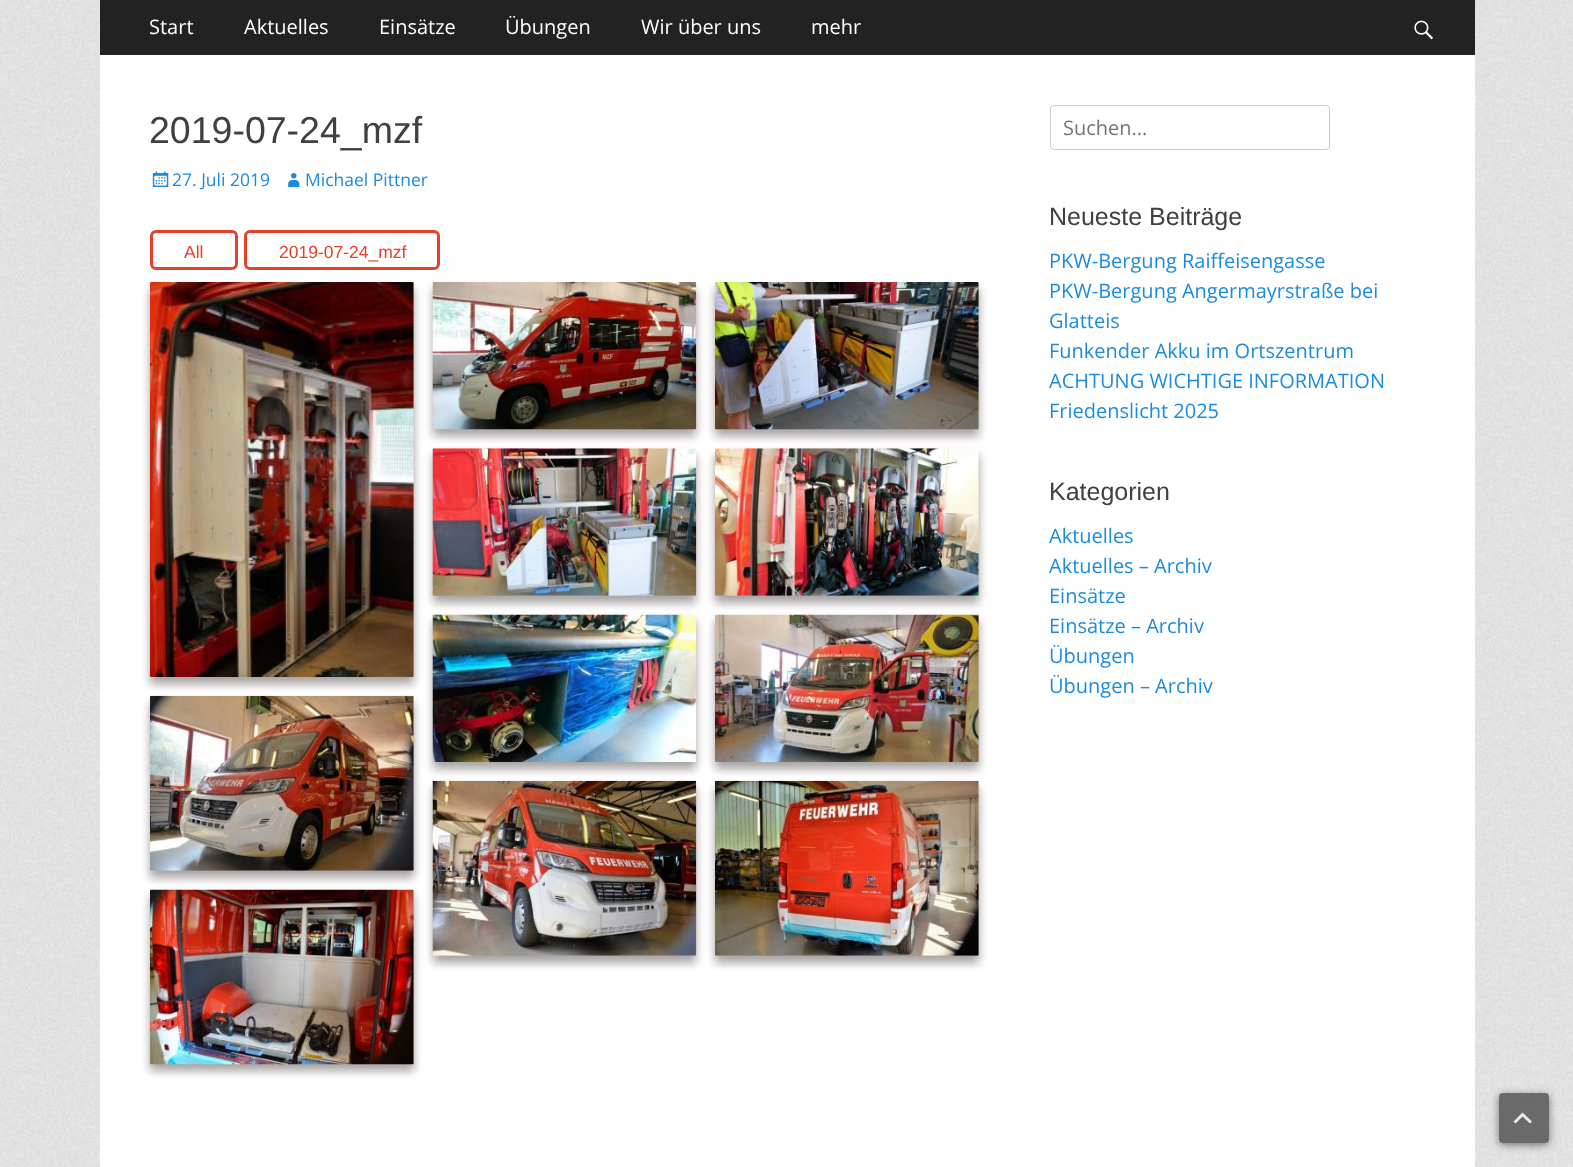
<?xml version="1.0" encoding="UTF-8"?>
<svg xmlns="http://www.w3.org/2000/svg" width="1573" height="1167">
    <defs>
        <filter id="blur1" x="-50%" y="-200%" width="200%" height="500%"><feGaussianBlur stdDeviation="4.5"/></filter>
        <clipPath id="clip1"><path d="M 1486 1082 H 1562 V 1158 H 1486 Z M 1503 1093 H 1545 C 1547 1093 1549 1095 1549 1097 V 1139 C 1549 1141 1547 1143 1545 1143 H 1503 C 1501 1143 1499 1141 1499 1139 V 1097 C 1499 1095 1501 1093 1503 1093 Z" clip-rule="evenodd"/></clipPath>
        <filter id="blur2" x="-50%" y="-200%" width="200%" height="500%"><feGaussianBlur stdDeviation="4"/></filter>
    </defs>
    <rect width="100%" height="100%" fill="#FFFFFF"/>
    <image x="0" y="0" width="1573" height="1167" href="img_01.png"/>
    <rect x="100" y="0" width="1375" height="55" fill="#222222"/>
    <text x="149" y="34" font-family="Open Sans" font-size="20" fill="#FFFFFF">Start</text>
    <text x="244" y="34" font-family="Open Sans" font-size="20" fill="#FFFFFF">Aktuelles</text>
    <text x="379" y="34" font-family="Open Sans" font-size="20" fill="#FFFFFF">Einsätze</text>
    <text x="505" y="34" font-family="Open Sans" font-size="20" fill="#FFFFFF">Übungen</text>
    <text x="641" y="34" font-family="Open Sans" font-size="20" fill="#FFFFFF">Wir über uns</text>
    <text x="811" y="34" font-family="Open Sans" font-size="20" fill="#FFFFFF">mehr</text>
    <image x="1414" y="20" width="19" height="20" href="img_02.png"/>
    <rect x="100" y="55" width="1375" height="1112" fill="#FFFFFF"/>
    <text x="149" y="143" font-family="Liberation Sans" font-size="37.5" fill="#404040">2019-07-24_mzf</text>
    <image x="152" y="171" width="17" height="16" href="img_03.png"/>
    <text x="172" y="186" font-family="Open Sans" font-size="17.5" fill="#1B8BE0">27. Juli 2019</text>
    <image x="288" y="173" width="12" height="14" href="img_04.png"/>
    <text x="305" y="186" font-family="Open Sans" font-size="17.5" fill="#1B8BE0">Michael Pittner</text>
    <rect x="151.5" y="231.5" width="85" height="37" rx="4.5" fill="none" stroke="#E54028" stroke-width="3"/>
    <text x="184" y="258" font-family="Liberation Sans" font-size="17.5" fill="#E54028">All</text>
    <rect x="245.5" y="231.5" width="193" height="37" rx="4.5" fill="none" stroke="#E54028" stroke-width="3"/>
    <text x="279" y="258" font-family="Liberation Sans" font-size="17.5" fill="#E54028">2019-07-24_mzf</text>
    <rect x="150" y="289" width="264" height="395" rx="1" fill="#221919" fill-opacity="0.4" filter="url(#blur1)"/>
    <image x="150" y="282" width="264" height="395" href="img_05.png"/>
    <rect x="433" y="289" width="263" height="147" rx="1" fill="#221919" fill-opacity="0.4" filter="url(#blur1)"/>
    <image x="432" y="282" width="265" height="148" href="img_06.png"/>
    <rect x="715" y="289" width="264" height="147" rx="1" fill="#221919" fill-opacity="0.4" filter="url(#blur1)"/>
    <image x="715" y="282" width="264" height="148" href="img_07.png"/>
    <rect x="433" y="455" width="263" height="148" rx="1" fill="#221919" fill-opacity="0.4" filter="url(#blur1)"/>
    <image x="432" y="448" width="265" height="148" href="img_08.png"/>
    <rect x="715" y="455" width="264" height="148" rx="1" fill="#221919" fill-opacity="0.4" filter="url(#blur1)"/>
    <image x="715" y="448" width="264" height="148" href="img_09.png"/>
    <rect x="150" y="703" width="264" height="175" rx="1" fill="#221919" fill-opacity="0.4" filter="url(#blur1)"/>
    <image x="150" y="695" width="264" height="176" href="img_10.png"/>
    <rect x="433" y="621" width="263" height="148" rx="1" fill="#221919" fill-opacity="0.4" filter="url(#blur1)"/>
    <image x="432" y="614" width="265" height="148" href="img_11.png"/>
    <rect x="715" y="621" width="264" height="148" rx="1" fill="#221919" fill-opacity="0.4" filter="url(#blur1)"/>
    <image x="715" y="614" width="264" height="148" href="img_12.png"/>
    <rect x="150" y="896" width="264" height="175" rx="1" fill="#221919" fill-opacity="0.4" filter="url(#blur1)"/>
    <image x="150" y="889" width="264" height="176" href="img_13.png"/>
    <rect x="433" y="788" width="263" height="175" rx="1" fill="#221919" fill-opacity="0.4" filter="url(#blur1)"/>
    <image x="432" y="780" width="265" height="176" href="img_14.png"/>
    <rect x="715" y="788" width="264" height="175" rx="1" fill="#221919" fill-opacity="0.4" filter="url(#blur1)"/>
    <image x="715" y="780" width="264" height="176" href="img_15.png"/>
    <rect x="1050.5" y="105.5" width="279" height="44" rx="3.5" fill="none" stroke="#CCCCCC"/>
    <text x="1063" y="135" font-family="Open Sans" font-size="20" fill="#757575">Suchen...</text>
    <text x="1049" y="225" font-family="Liberation Sans" font-size="25" fill="#404040">Neueste Beiträge</text>
    <text font-family="Open Sans" font-size="20" fill="#1B8BE0">
        <tspan x="1049" y="268">PKW-Bergung Raiffeisengasse</tspan>
        <tspan x="1049" y="298">PKW-Bergung Angermayrstraße bei</tspan>
        <tspan x="1049" y="328">Glatteis</tspan>
        <tspan x="1049" y="358">Funkender Akku im Ortszentrum</tspan>
        <tspan x="1049" y="388">ACHTUNG WICHTIGE INFORMATION</tspan>
        <tspan x="1049" y="418">Friedenslicht 2025</tspan>
    </text>
    <text x="1049" y="500" font-family="Liberation Sans" font-size="25" fill="#404040">Kategorien</text>
    <text font-family="Open Sans" font-size="20" fill="#1B8BE0">
        <tspan x="1049" y="543">Aktuelles</tspan>
        <tspan x="1049" y="573">Aktuelles – Archiv</tspan>
        <tspan x="1049" y="603">Einsätze</tspan>
        <tspan x="1049" y="633">Einsätze – Archiv</tspan>
        <tspan x="1049" y="663">Übungen</tspan>
        <tspan x="1049" y="693">Übungen – Archiv</tspan>
    </text>
    <g clip-path="url(#clip1)">
        <rect x="1499" y="1095" width="50" height="50" rx="4" fill="#000000" fill-opacity="0.49" filter="url(#blur2)"/>
    </g>
    <rect x="1499" y="1093" width="50" height="50" rx="4" fill="#666666" fill-opacity="0.97"/>
    <path d="M 1530 1123.5 L 1522.5 1116.5 L 1515.5 1123.5 L 1513.5 1121.5 L 1522.5 1112.5 L 1532 1121.5 Z" fill="#EAEAEA"/>
</svg>
